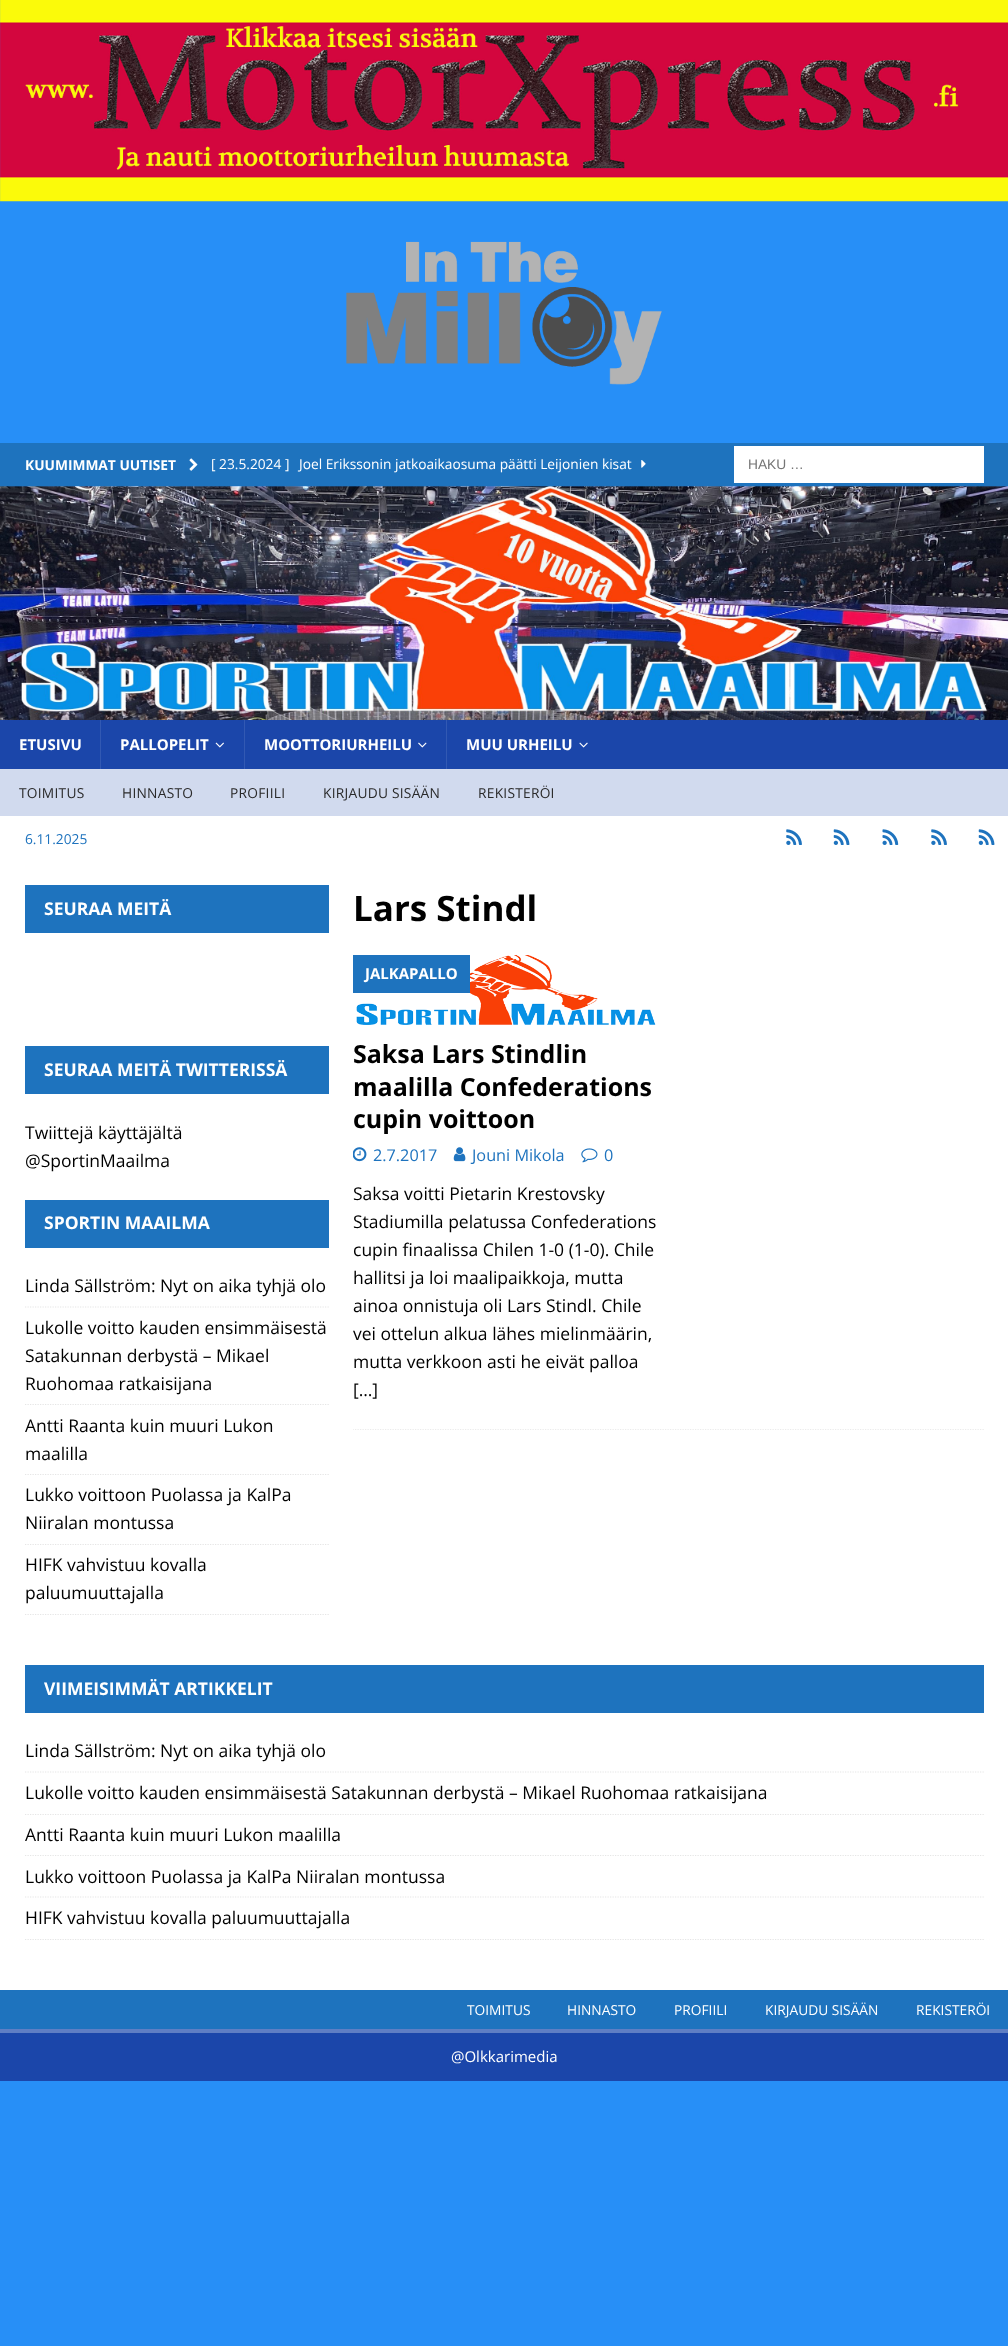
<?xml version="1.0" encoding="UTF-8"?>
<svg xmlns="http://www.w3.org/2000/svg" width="1008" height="2346">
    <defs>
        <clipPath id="clip1"><rect x="25" y="1200" width="304" height="415"/></clipPath>
        <clipPath id="clip2"><rect x="353" y="885" width="631" height="545"/></clipPath>
        <clipPath id="clip3"><rect x="25" y="1665" width="959" height="275"/></clipPath>
    </defs>
    <rect width="100%" height="100%" fill="#278FF7"/>
    <image x="0" y="0" width="1008" height="202" href="img_01.png"/>
    <image x="346" y="241" width="316" height="144" href="img_02.png"/>
    <rect x="0" y="443" width="1008" height="43" fill="#1E73BE"/>
    <text x="25" y="470" font-family="Open Sans" font-size="13.75" font-weight="700" fill="#FFFFFF">KUUMIMMAT UUTISET</text>
    <image x="189" y="458" width="9" height="13" href="img_03.png"/>
    <text x="211" y="469" font-family="Open Sans" font-size="13.75" fill="#FFFFFF">[ 23.5.2024 ]</text>
    <text x="299" y="469" font-family="Open Sans" font-size="13.75" fill="#FFFFFF">Joel Erikssonin jatkoaikaosuma päätti Leijonien kisat</text>
    <image x="641" y="460" width="5" height="8" href="img_04.png"/>
    <rect x="734" y="446" width="250" height="37" fill="#FFFFFF"/>
    <text x="748" y="469" font-family="Liberation Sans" font-size="13.75" fill="#757575">HAKU …</text>
    <image x="0" y="486" width="1008" height="234" href="img_05.png"/>
    <rect x="0" y="720" width="1008" height="49" fill="#1B46AA"/>
    <text x="19" y="750" font-family="Open Sans" font-size="15" font-weight="700" fill="#FFFFFF">ETUSIVU</text>
    <rect x="100" y="720" width="1" height="49" fill="#3259B3"/>
    <text x="120" y="750" font-family="Open Sans" font-size="15" font-weight="700" fill="#FFFFFF">PALLOPELIT</text>
    <image x="215" y="742" width="9" height="6" href="img_06.png"/>
    <rect x="244" y="720" width="1" height="49" fill="#3259B3"/>
    <text x="264" y="750" font-family="Open Sans" font-size="15" font-weight="700" fill="#FFFFFF">MOOTTORIURHEILU</text>
    <image x="418" y="742" width="9" height="6" href="img_07.png"/>
    <rect x="446" y="720" width="1" height="49" fill="#3259B3"/>
    <text x="466" y="750" font-family="Open Sans" font-size="15" font-weight="700" fill="#FFFFFF">MUU URHEILU</text>
    <image x="579" y="742" width="9" height="6" href="img_08.png"/>
    <rect x="0" y="769" width="1008" height="47" fill="#D1DAEE"/>
    <text x="19" y="798" font-family="Open Sans" font-size="13.75" letter-spacing="0.25" fill="#2A2A2A">TOIMITUS</text>
    <text x="122" y="798" font-family="Open Sans" font-size="13.75" letter-spacing="0.25" fill="#2A2A2A">HINNASTO</text>
    <text x="230" y="798" font-family="Open Sans" font-size="13.75" letter-spacing="0.25" fill="#2A2A2A">PROFIILI</text>
    <text x="323" y="798" font-family="Open Sans" font-size="13.75" letter-spacing="0.25" fill="#2A2A2A">KIRJAUDU SISÄÄN</text>
    <text x="478" y="798" font-family="Open Sans" font-size="13.75" letter-spacing="0.25" fill="#2A2A2A">REKISTERÖI</text>
    <rect x="0" y="816" width="1008" height="1174" fill="#FFFFFF"/>
    <text x="25" y="844" font-family="Open Sans" font-size="13.75" fill="#1E73BE">6.11.2025</text>
    <image x="786" y="829" width="16" height="16" href="img_09.png"/>
    <image x="833" y="829" width="17" height="16" href="img_10.png"/>
    <image x="882" y="829" width="17" height="16" href="img_11.png"/>
    <image x="931" y="829" width="16" height="16" href="img_09.png"/>
    <image x="978" y="829" width="17" height="16" href="img_10.png"/>
    <rect x="25" y="885" width="304" height="48" fill="#1E73BE"/>
    <text x="44" y="915" font-family="Open Sans" font-size="17.5" font-weight="700" fill="#FFFFFF">SEURAA MEITÄ</text>
    <rect x="25" y="1046" width="304" height="48" fill="#1E73BE"/>
    <text x="44" y="1076" font-family="Open Sans" font-size="17.5" font-weight="700" fill="#FFFFFF">SEURAA MEITÄ TWITTERISSÄ</text>
    <text font-family="Open Sans" font-size="17.5" fill="#000000">
        <tspan x="25" y="1139">Twiittejä käyttäjältä</tspan>
        <tspan x="25" y="1167">@SportinMaailma</tspan>
    </text>
    <rect x="25" y="1200" width="304" height="48" fill="#1E73BE"/>
    <text x="44" y="1229" font-family="Open Sans" font-size="17.5" font-weight="700" fill="#FFFFFF">SPORTIN MAAILMA</text>
    <path d="M 25 1307 H 329" fill="none" stroke="#E5E5E5" stroke-width="1.2" stroke-dasharray="1.25 1.25"/>
    <text x="25" y="1292" font-family="Open Sans" font-size="17.5" fill="#000000">Linda Sällström: Nyt on aika tyhjä olo</text>
    <path d="M 25 1404.5 H 329" fill="none" stroke="#E5E5E5" stroke-width="1.2" stroke-dasharray="1.25 1.25"/>
    <text font-family="Open Sans" font-size="17.5" fill="#000000">
        <tspan x="25" y="1334">Lukolle voitto kauden ensimmäisestä</tspan>
        <tspan x="25" y="1362">Satakunnan derbystä – Mikael</tspan>
        <tspan x="25" y="1390">Ruohomaa ratkaisijana</tspan>
    </text>
    <path d="M 25 1474.5 H 329" fill="none" stroke="#E5E5E5" stroke-width="1.2" stroke-dasharray="1.25 1.25"/>
    <text font-family="Open Sans" font-size="17.5" fill="#000000">
        <tspan x="25" y="1432">Antti Raanta kuin muuri Lukon</tspan>
        <tspan x="25" y="1460">maalilla</tspan>
    </text>
    <path d="M 25 1544.5 H 329" fill="none" stroke="#E5E5E5" stroke-width="1.2" stroke-dasharray="1.25 1.25"/>
    <text font-family="Open Sans" font-size="17.5" fill="#000000">
        <tspan x="25" y="1501">Lukko voittoon Puolassa ja KalPa</tspan>
        <tspan x="25" y="1529">Niiralan montussa</tspan>
    </text>
    <g clip-path="url(#clip1)">
        <path d="M 25 1614.5 H 329" fill="none" stroke="#E5E5E5" stroke-width="1.2" stroke-dasharray="1.25 1.25"/>
    </g>
    <text font-family="Open Sans" font-size="17.5" fill="#000000">
        <tspan x="25" y="1571">HIFK vahvistuu kovalla</tspan>
        <tspan x="25" y="1599">paluumuuttajalla</tspan>
    </text>
    <text x="353" y="921" font-family="Open Sans" font-size="35" font-weight="700" fill="#000000">Lars Stindl</text>
    <g clip-path="url(#clip2)">
        <path d="M 352.5 1429.5 H 984" fill="none" stroke="#EBEBEB" stroke-width="1.2" stroke-dasharray="1.25 1.25"/>
    </g>
    <image x="356" y="955" width="300" height="70" href="img_12.png"/>
    <rect x="353" y="955" width="117" height="38" fill="#1E73BE"/>
    <text x="365" y="979" font-family="Open Sans" font-size="15" font-weight="700" fill="#FFFFFF">JALKAPALLO</text>
    <text font-family="Open Sans" font-size="25" font-weight="700" fill="#000000">
        <tspan x="353" y="1063">Saksa Lars Stindlin</tspan>
        <tspan x="353" y="1096">maalilla Confederations</tspan>
        <tspan x="353" y="1128">cupin voittoon</tspan>
    </text>
    <image x="353" y="1147" width="14" height="15" href="img_13.png"/>
    <text x="373" y="1161" font-family="Open Sans" font-size="16.25" fill="#1E73BE">2.7.2017</text>
    <image x="453" y="1147" width="13" height="15" href="img_14.png"/>
    <text x="472" y="1161" font-family="Open Sans" font-size="16.25" fill="#1E73BE">Jouni Mikola</text>
    <image x="581" y="1148" width="17" height="15" href="img_15.png"/>
    <text x="604" y="1161" font-family="Open Sans" font-size="16.25" fill="#1E73BE">0</text>
    <text font-family="Open Sans" font-size="17.5" fill="#000000">
        <tspan x="353" y="1200">Saksa voitti Pietarin Krestovsky</tspan>
        <tspan x="353" y="1228">Stadiumilla pelatussa Confederations</tspan>
        <tspan x="353" y="1256">cupin finaalissa Chilen 1-0 (1-0). Chile</tspan>
        <tspan x="353" y="1284">hallitsi ja loi maalipaikkoja, mutta</tspan>
        <tspan x="353" y="1312">ainoa onnistuja oli Lars Stindl. Chile</tspan>
        <tspan x="353" y="1340">vei ottelun alkua lähes mielinmäärin,</tspan>
        <tspan x="353" y="1368">mutta verkkoon asti he eivät palloa</tspan>
        <tspan x="353" y="1396">[…]</tspan>
    </text>
    <rect x="25" y="1665" width="959" height="48" fill="#1E73BE"/>
    <text x="44" y="1695" font-family="Open Sans" font-size="17.5" font-weight="700" fill="#FFFFFF">VIIMEISIMMÄT ARTIKKELIT</text>
    <path d="M 25 1772 H 984" fill="none" stroke="#E5E5E5" stroke-width="1.2" stroke-dasharray="1.25 1.25"/>
    <text x="25" y="1757" font-family="Open Sans" font-size="17.5" fill="#000000">Linda Sällström: Nyt on aika tyhjä olo</text>
    <path d="M 25 1814.5 H 984" fill="none" stroke="#E5E5E5" stroke-width="1.2" stroke-dasharray="1.25 1.25"/>
    <text x="25" y="1799" font-family="Open Sans" font-size="17.5" fill="#000000">Lukolle voitto kauden ensimmäisestä Satakunnan derbystä – Mikael Ruohomaa ratkaisijana</text>
    <path d="M 25 1855.5 H 984" fill="none" stroke="#E5E5E5" stroke-width="1.2" stroke-dasharray="1.25 1.25"/>
    <text x="25" y="1841" font-family="Open Sans" font-size="17.5" fill="#000000">Antti Raanta kuin muuri Lukon maalilla</text>
    <path d="M 25 1897 H 984" fill="none" stroke="#E5E5E5" stroke-width="1.2" stroke-dasharray="1.25 1.25"/>
    <text x="25" y="1883" font-family="Open Sans" font-size="17.5" fill="#000000">Lukko voittoon Puolassa ja KalPa Niiralan montussa</text>
    <g clip-path="url(#clip3)">
        <path d="M 25 1939.5 H 984" fill="none" stroke="#E5E5E5" stroke-width="1.2" stroke-dasharray="1.25 1.25"/>
    </g>
    <text x="25" y="1924" font-family="Open Sans" font-size="17.5" fill="#000000">HIFK vahvistuu kovalla paluumuuttajalla</text>
    <rect x="0" y="1990" width="1008" height="39" fill="#1E73BE"/>
    <text x="467" y="2015" font-family="Open Sans" font-size="13.75" fill="#FFFFFF">TOIMITUS</text>
    <text x="567" y="2015" font-family="Open Sans" font-size="13.75" fill="#FFFFFF">HINNASTO</text>
    <text x="674" y="2015" font-family="Open Sans" font-size="13.75" fill="#FFFFFF">PROFIILI</text>
    <text x="765" y="2015" font-family="Open Sans" font-size="13.75" fill="#FFFFFF">KIRJAUDU SISÄÄN</text>
    <text x="916" y="2015" font-family="Open Sans" font-size="13.75" fill="#FFFFFF">REKISTERÖI</text>
    <rect x="0" y="2033" width="1008" height="48" fill="#1B46AA"/>
    <rect x="0" y="2029" width="1008" height="4" fill="#5F7EC4"/>
    <text x="451" y="2062" font-family="Open Sans" font-size="15" fill="#FFFFFF">@Olkkarimedia</text>
</svg>
